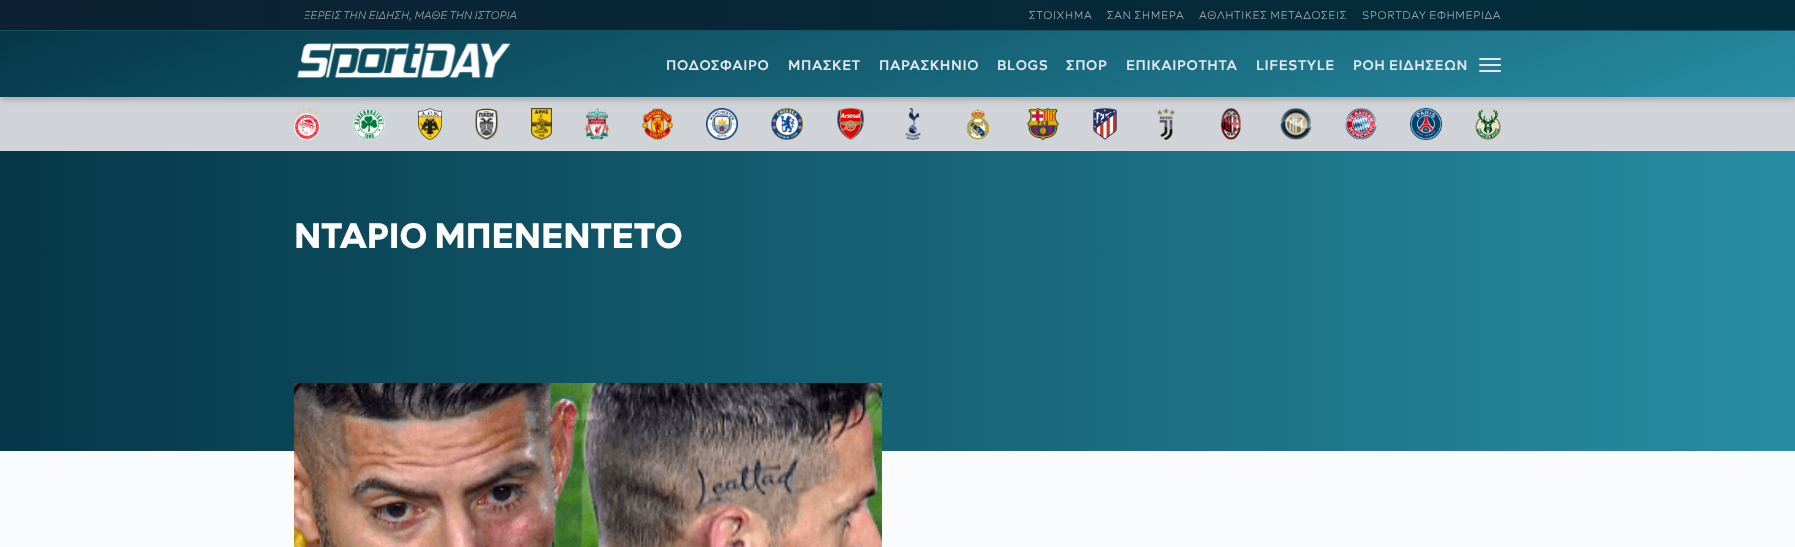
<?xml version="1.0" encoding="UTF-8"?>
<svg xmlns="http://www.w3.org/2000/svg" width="1795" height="547">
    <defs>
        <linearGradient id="g1" gradientUnits="userSpaceOnUse" x1="-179" y1="15" x2="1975" y2="15"><stop offset="0" stop-color="#0D2032"/><stop offset="1" stop-color="#012F3E"/></linearGradient>
        <linearGradient id="g2" gradientUnits="userSpaceOnUse" x1="-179" y1="15" x2="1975" y2="15"><stop offset="0" stop-color="#194F63"/><stop offset="1" stop-color="#12586A"/></linearGradient>
        <filter id="blur1" x="-50%" y="-200%" width="200%" height="500%"><feGaussianBlur stdDeviation="2.5"/></filter>
        <linearGradient id="g3" gradientUnits="userSpaceOnUse" x1="759" y1="-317" x2="1036" y2="445"><stop offset="0" stop-color="#012F3E"/><stop offset="1" stop-color="#2B95AD"/></linearGradient>
        <linearGradient id="g4" gradientUnits="userSpaceOnUse" x1="-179" y1="301" x2="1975" y2="301"><stop offset="0" stop-color="#012F3E"/><stop offset="1" stop-color="#2B95AD"/></linearGradient>
    </defs>
    <rect width="100%" height="100%" fill="#FAFBFC"/>
    <rect x="0" y="0" width="1795" height="30" fill="url(#g1)"/>
    <rect x="0" y="30" width="1795" height="1" fill="url(#g2)"/>
    <text x="304" y="19" font-family="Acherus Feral" font-size="11" font-weight="300" font-style="italic" fill="#A8B1B7">ΞΕΡΕΙΣ ΤΗΝ ΕΙΔΗΣΗ, ΜΑΘΕ ΤΗΝ ΙΣΤΟΡΙΑ</text>
    <text x="1029" y="19" font-family="Acherus Feral" font-size="11" font-weight="300" letter-spacing="0.6" fill="#B2BAC0">ΣΤΟΙΧΗΜΑ</text>
    <text x="1107" y="19" font-family="Acherus Feral" font-size="11" font-weight="300" letter-spacing="0.6" fill="#B2BAC0">ΣΑΝ ΣΗΜΕΡΑ</text>
    <text x="1199" y="19" font-family="Acherus Feral" font-size="11" font-weight="300" letter-spacing="0.6" fill="#B2BAC0">ΑΘΛΗΤΙΚΕΣ ΜΕΤΑΔΟΣΕΙΣ</text>
    <text x="1362" y="19" font-family="Acherus Feral" font-size="11" font-weight="300" letter-spacing="0.6" fill="#B2BAC0">SPORTDAY ΕΦΗΜΕΡΙΔΑ</text>
    <rect x="0" y="98" width="1795" height="52" fill="#D0D4D8"/>
    <rect x="0" y="97" width="1795" height="1" fill="#D9DCDF"/>
    <image x="294" y="108" width="26" height="32" href="img_02.png"/>
    <image x="353" y="108" width="32" height="32" href="img_03.png"/>
    <image x="418" y="108" width="24" height="32" href="img_04.png"/>
    <image x="475" y="108" width="23" height="32" href="img_05.png"/>
    <image x="531" y="108" width="21" height="32" href="img_06.png"/>
    <image x="585" y="108" width="24" height="32" href="img_07.png"/>
    <image x="642" y="108" width="31" height="32" href="img_08.png"/>
    <image x="706" y="108" width="32" height="32" href="img_09.png"/>
    <image x="771" y="108" width="32" height="32" href="img_10.png"/>
    <image x="837" y="108" width="27" height="32" href="img_11.png"/>
    <image x="905" y="108" width="16" height="32" href="img_12.png"/>
    <image x="966" y="108" width="24" height="32" href="img_13.png"/>
    <image x="1027" y="108" width="32" height="32" href="img_14.png"/>
    <image x="1093" y="108" width="24" height="32" href="img_15.png"/>
    <image x="1157" y="108" width="18" height="32" href="img_16.png"/>
    <image x="1220" y="108" width="22" height="32" href="img_17.png"/>
    <image x="1280" y="108" width="32" height="32" href="img_18.png"/>
    <image x="1345" y="108" width="32" height="32" href="img_19.png"/>
    <image x="1410" y="108" width="32" height="32" href="img_20.png"/>
    <image x="1475" y="108" width="26" height="32" href="img_21.png"/>
    <rect x="0" y="34" width="1795" height="66" fill="#000000" fill-opacity="0.2" filter="url(#blur1)"/>
    <rect x="0" y="31" width="1795" height="66" fill="url(#g3)"/>
    <image x="297" y="43" width="214" height="36" href="img_01.png"/>
    <text x="666" y="70" font-family="Acherus Feral" font-size="14" font-weight="700" letter-spacing="0.6" fill="#E5E8F0">ΠΟΔΟΣΦΑΙΡΟ</text>
    <text x="788" y="70" font-family="Acherus Feral" font-size="14" font-weight="700" letter-spacing="0.6" fill="#E5E8F0">ΜΠΑΣΚΕΤ</text>
    <text x="879" y="70" font-family="Acherus Feral" font-size="14" font-weight="700" letter-spacing="0.6" fill="#E5E8F0">ΠΑΡΑΣΚΗΝΙΟ</text>
    <text x="997" y="70" font-family="Acherus Feral" font-size="14" font-weight="700" letter-spacing="0.6" fill="#E5E8F0">BLOGS</text>
    <text x="1066" y="70" font-family="Acherus Feral" font-size="14" font-weight="700" letter-spacing="0.6" fill="#E5E8F0">ΣΠΟΡ</text>
    <text x="1126" y="70" font-family="Acherus Feral" font-size="14" font-weight="700" letter-spacing="0.6" fill="#E5E8F0">ΕΠΙΚΑΙΡΟΤΗΤΑ</text>
    <text x="1256" y="70" font-family="Acherus Feral" font-size="14" font-weight="700" letter-spacing="0.6" fill="#E5E8F0">LIFESTYLE</text>
    <text x="1353" y="70" font-family="Acherus Feral" font-size="14" font-weight="700" letter-spacing="0.6" fill="#E5E8F0">ΡΟΗ ΕΙΔΗΣΕΩΝ</text>
    <rect x="1479" y="58" width="22" height="2" rx="1" fill="#E5E8F0"/>
    <rect x="1479" y="64" width="22" height="2" rx="1" fill="#E5E8F0"/>
    <rect x="1479" y="70" width="22" height="2" rx="1" fill="#E5E8F0"/>
    <rect x="0" y="150" width="1795" height="1" fill="#D7DADE"/>
    <rect x="0" y="151" width="1795" height="300" fill="url(#g4)"/>
    <text x="294" y="248" font-family="Acherus Feral" font-size="35.25" font-weight="900" fill="#FFFFFF">ΝΤΑΡΙΟ ΜΠΕΝΕΝΤΕΤΟ</text>
    <image x="294" y="383" width="588" height="164" href="img_22.png"/>
</svg>
